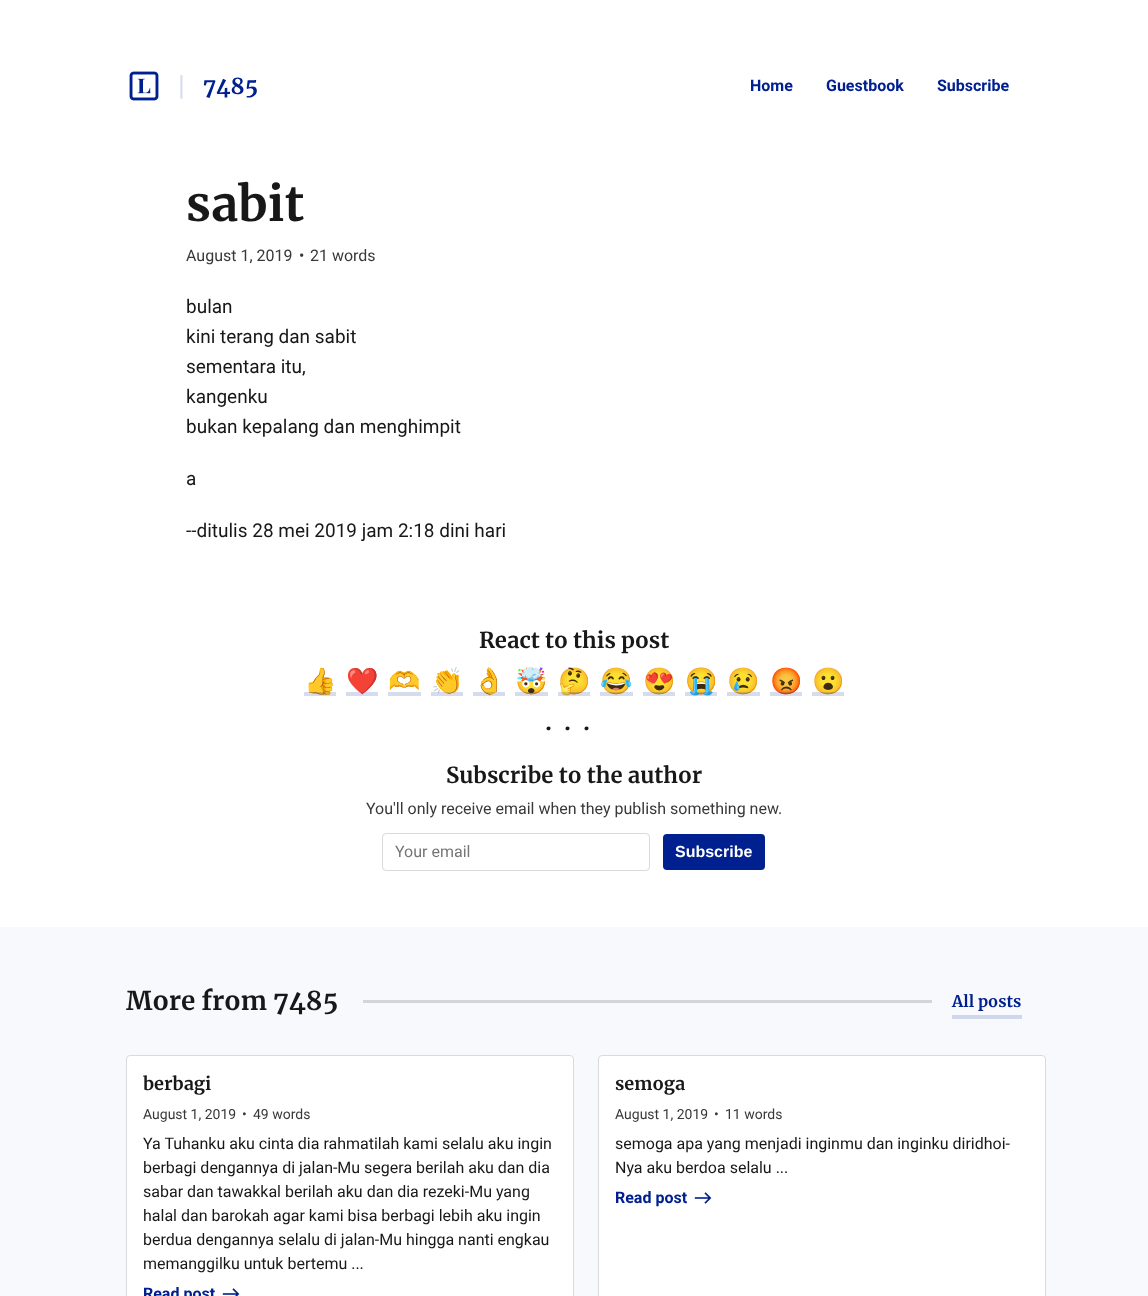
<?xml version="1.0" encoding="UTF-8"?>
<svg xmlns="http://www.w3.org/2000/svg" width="1148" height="1296">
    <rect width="100%" height="100%" fill="#F8F9FC"/>
    <rect x="0" y="0" width="1148" height="927" fill="#FFFFFF"/>
    <image x="129" y="71" width="30" height="30" href="img_01.png"/>
    <text x="178" y="95" font-family="Roboto" font-size="28" fill="#D6DBED">|</text>
    <text x="203" y="94" font-family="Merriweather" font-size="22" font-weight="700" fill="#00208F">7485</text>
    <text x="750" y="91" font-family="Roboto" font-size="16" font-weight="700" fill="#00208F">Home</text>
    <text x="826" y="91" font-family="Roboto" font-size="16" font-weight="700" fill="#00208F">Guestbook</text>
    <text x="937" y="91" font-family="Roboto" font-size="16" font-weight="700" fill="#00208F">Subscribe</text>
    <text x="186" y="221" font-family="Merriweather" font-size="48" font-weight="700" fill="#181818">sabit</text>
    <text x="186" y="261" font-family="Roboto" font-size="16" fill="#383838">August 1, 2019</text>
    <text x="299" y="261" font-family="Roboto" font-size="16" fill="#383838">•</text>
    <text x="310" y="261" font-family="Roboto" font-size="16" fill="#383838">21 words</text>
    <text font-family="Roboto" font-size="19" fill="#181818">
        <tspan x="186" y="313">bulan</tspan>
        <tspan x="186" y="343">kini terang dan sabit</tspan>
        <tspan x="186" y="373">sementara itu,</tspan>
        <tspan x="186" y="403">kangenku</tspan>
        <tspan x="186" y="433">bukan kepalang dan menghimpit</tspan>
    </text>
    <text x="186" y="485" font-family="Roboto" font-size="19" fill="#181818">a</text>
    <text x="186" y="537" font-family="Roboto" font-size="19" fill="#181818">--ditulis 28 mei 2019 jam 2:18 dini hari</text>
    <text x="479" y="648" font-family="Merriweather" font-size="22" font-weight="700" fill="#181818">React to this post</text>
    <text x="304" y="690" font-family="Noto Color Emoji" font-size="26" font-weight="700" fill="#00208F">👍</text>
    <rect x="304" y="692" width="32" height="4" fill="#00208F" fill-opacity="0.16"/>
    <text x="346" y="690" font-family="Noto Color Emoji" font-size="26" font-weight="700" fill="#00208F">❤️</text>
    <rect x="346" y="692" width="32" height="4" fill="#00208F" fill-opacity="0.16"/>
    <text x="388" y="690" font-family="Noto Color Emoji" font-size="26" font-weight="700" fill="#00208F">🫶</text>
    <rect x="388" y="692" width="33" height="4" fill="#00208F" fill-opacity="0.16"/>
    <text x="431" y="690" font-family="Noto Color Emoji" font-size="26" font-weight="700" fill="#00208F">👏</text>
    <rect x="431" y="692" width="32" height="4" fill="#00208F" fill-opacity="0.16"/>
    <text x="473" y="690" font-family="Noto Color Emoji" font-size="26" font-weight="700" fill="#00208F">👌</text>
    <rect x="473" y="692" width="32" height="4" fill="#00208F" fill-opacity="0.16"/>
    <text x="515" y="690" font-family="Noto Color Emoji" font-size="26" font-weight="700" fill="#00208F">🤯</text>
    <rect x="515" y="692" width="33" height="4" fill="#00208F" fill-opacity="0.16"/>
    <text x="558" y="690" font-family="Noto Color Emoji" font-size="26" font-weight="700" fill="#00208F">🤔</text>
    <rect x="558" y="692" width="32" height="4" fill="#00208F" fill-opacity="0.16"/>
    <text x="600" y="690" font-family="Noto Color Emoji" font-size="26" font-weight="700" fill="#00208F">😂</text>
    <rect x="600" y="692" width="33" height="4" fill="#00208F" fill-opacity="0.16"/>
    <text x="643" y="690" font-family="Noto Color Emoji" font-size="26" font-weight="700" fill="#00208F">😍</text>
    <rect x="643" y="692" width="32" height="4" fill="#00208F" fill-opacity="0.16"/>
    <text x="685" y="690" font-family="Noto Color Emoji" font-size="26" font-weight="700" fill="#00208F">😭</text>
    <rect x="685" y="692" width="32" height="4" fill="#00208F" fill-opacity="0.16"/>
    <text x="727" y="690" font-family="Noto Color Emoji" font-size="26" font-weight="700" fill="#00208F">😢</text>
    <rect x="727" y="692" width="33" height="4" fill="#00208F" fill-opacity="0.16"/>
    <text x="770" y="690" font-family="Noto Color Emoji" font-size="26" font-weight="700" fill="#00208F">😡</text>
    <rect x="770" y="692" width="32" height="4" fill="#00208F" fill-opacity="0.16"/>
    <text x="812" y="690" font-family="Noto Color Emoji" font-size="26" font-weight="700" fill="#00208F">😮</text>
    <rect x="812" y="692" width="32" height="4" fill="#00208F" fill-opacity="0.16"/>
    <text x="545" y="730" font-family="Merriweather" font-size="24" font-weight="700" letter-spacing="12" fill="#181818">...</text>
    <text x="446" y="783" font-family="Merriweather" font-size="22" font-weight="700" fill="#181818">Subscribe to the author</text>
    <text x="366" y="814" font-family="Roboto" font-size="16" fill="#383838">You'll only receive email when they publish something new.</text>
    <rect x="382.5" y="833.5" width="267" height="37" rx="3.5" fill="none" stroke="#DADADA"/>
    <text x="395" y="857" font-family="Roboto" font-size="16" fill="#757575">Your email</text>
    <rect x="663" y="834" width="102" height="36" rx="4" fill="#00208F"/>
    <text x="675" y="857" font-family="Liberation Sans" font-size="16" font-weight="700" fill="#FFFFFF">Subscribe</text>
    <text x="126" y="1010" font-family="Merriweather" font-size="26" font-weight="700" fill="#181818">More from 7485</text>
    <rect x="363" y="1000" width="569" height="3" fill="#D4D5D8"/>
    <text x="952" y="1007" font-family="Merriweather" font-size="16" font-weight="700" fill="#00208F">All posts</text>
    <rect x="952" y="1015" width="70" height="4" fill="#D0D6EB"/>
    <rect x="126.5" y="1055.5" width="447" height="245" rx="3.5" fill="#FFFFFF" stroke="#DADADA"/>
    <text x="143" y="1090" font-family="Merriweather" font-size="18" font-weight="700" fill="#181818">berbagi</text>
    <text x="143" y="1119" font-family="Roboto" font-size="14" fill="#383838">August 1, 2019</text>
    <text x="242" y="1119" font-family="Roboto" font-size="14" fill="#383838">•</text>
    <text x="253" y="1119" font-family="Roboto" font-size="14" fill="#383838">49 words</text>
    <text font-family="Roboto" font-size="16" fill="#181818">
        <tspan x="143" y="1149">Ya Tuhanku aku cinta dia rahmatilah kami selalu aku ingin</tspan>
        <tspan x="143" y="1173">berbagi dengannya di jalan-Mu segera berilah aku dan dia</tspan>
        <tspan x="143" y="1197">sabar dan tawakkal berilah aku dan dia rezeki-Mu yang</tspan>
        <tspan x="143" y="1221">halal dan barokah agar kami bisa berbagi lebih aku ingin</tspan>
        <tspan x="143" y="1245">berdua dengannya selalu di jalan-Mu hingga nanti engkau</tspan>
        <tspan x="143" y="1269">memanggilku untuk bertemu ...</tspan>
    </text>
    <text x="143" y="1299" font-family="Roboto" font-size="16" font-weight="700" fill="#00208F">Read post</text>
    <image x="222" y="1288" width="18" height="8" href="img_02.png"/>
    <rect x="598.5" y="1055.5" width="447" height="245" rx="3.5" fill="#FFFFFF" stroke="#DADADA"/>
    <text x="615" y="1090" font-family="Merriweather" font-size="18" font-weight="700" fill="#181818">semoga</text>
    <text x="615" y="1119" font-family="Roboto" font-size="14" fill="#383838">August 1, 2019</text>
    <text x="714" y="1119" font-family="Roboto" font-size="14" fill="#383838">•</text>
    <text x="725" y="1119" font-family="Roboto" font-size="14" fill="#383838">11 words</text>
    <text font-family="Roboto" font-size="16" fill="#181818">
        <tspan x="615" y="1149">semoga apa yang menjadi inginmu dan inginku diridhoi-</tspan>
        <tspan x="615" y="1173">Nya aku berdoa selalu ...</tspan>
    </text>
    <text x="615" y="1203" font-family="Roboto" font-size="16" font-weight="700" fill="#00208F">Read post</text>
    <image x="694" y="1192" width="18" height="12" href="img_03.png"/>
</svg>
